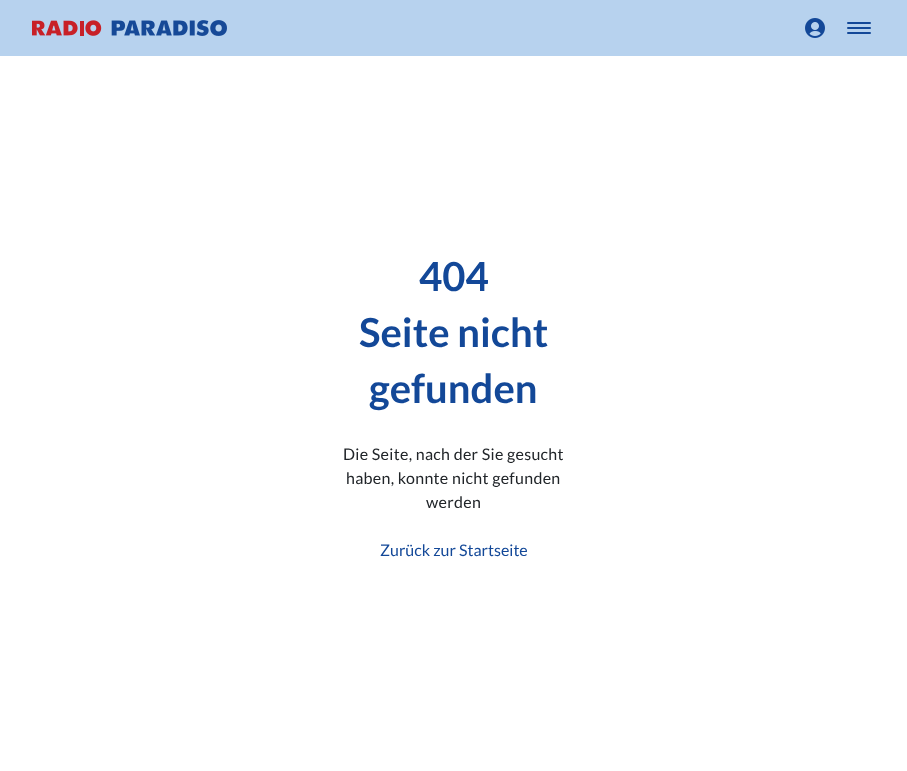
<?xml version="1.0" encoding="UTF-8"?>
<svg xmlns="http://www.w3.org/2000/svg" width="907" height="771">
    <rect width="100%" height="100%" fill="#FFFFFF"/>
    <rect x="0" y="0" width="907" height="56" fill="#B7D2EE"/>
    <image x="32" y="20" width="195" height="16" href="img_01.png"/>
    <image x="805" y="18" width="20" height="20" href="img_02.png"/>
    <rect x="847" y="22" width="24" height="2" rx="1" fill="#134898"/>
    <rect x="847" y="27" width="24" height="2" rx="1" fill="#134898"/>
    <rect x="847" y="32" width="24" height="2" rx="1" fill="#134898"/>
    <text x="419" y="291" font-family="Lato" font-size="40" font-weight="700" fill="#134898">404</text>
    <text x="359" y="347" font-family="Lato" font-size="40" font-weight="700" fill="#134898">Seite nicht</text>
    <text x="369" y="403" font-family="Lato" font-size="40" font-weight="700" fill="#134898">gefunden</text>
    <text x="343" y="460" font-family="Lato" font-size="16" letter-spacing="0.3" fill="#212529">Die Seite, nach der Sie gesucht</text>
    <text x="346" y="484" font-family="Lato" font-size="16" letter-spacing="0.3" fill="#212529">haben, konnte nicht gefunden</text>
    <text x="426" y="508" font-family="Lato" font-size="16" letter-spacing="0.3" fill="#212529">werden</text>
    <text x="380" y="556" font-family="Lato" font-size="16" fill="#134898">Zurück zur Startseite</text>
</svg>
